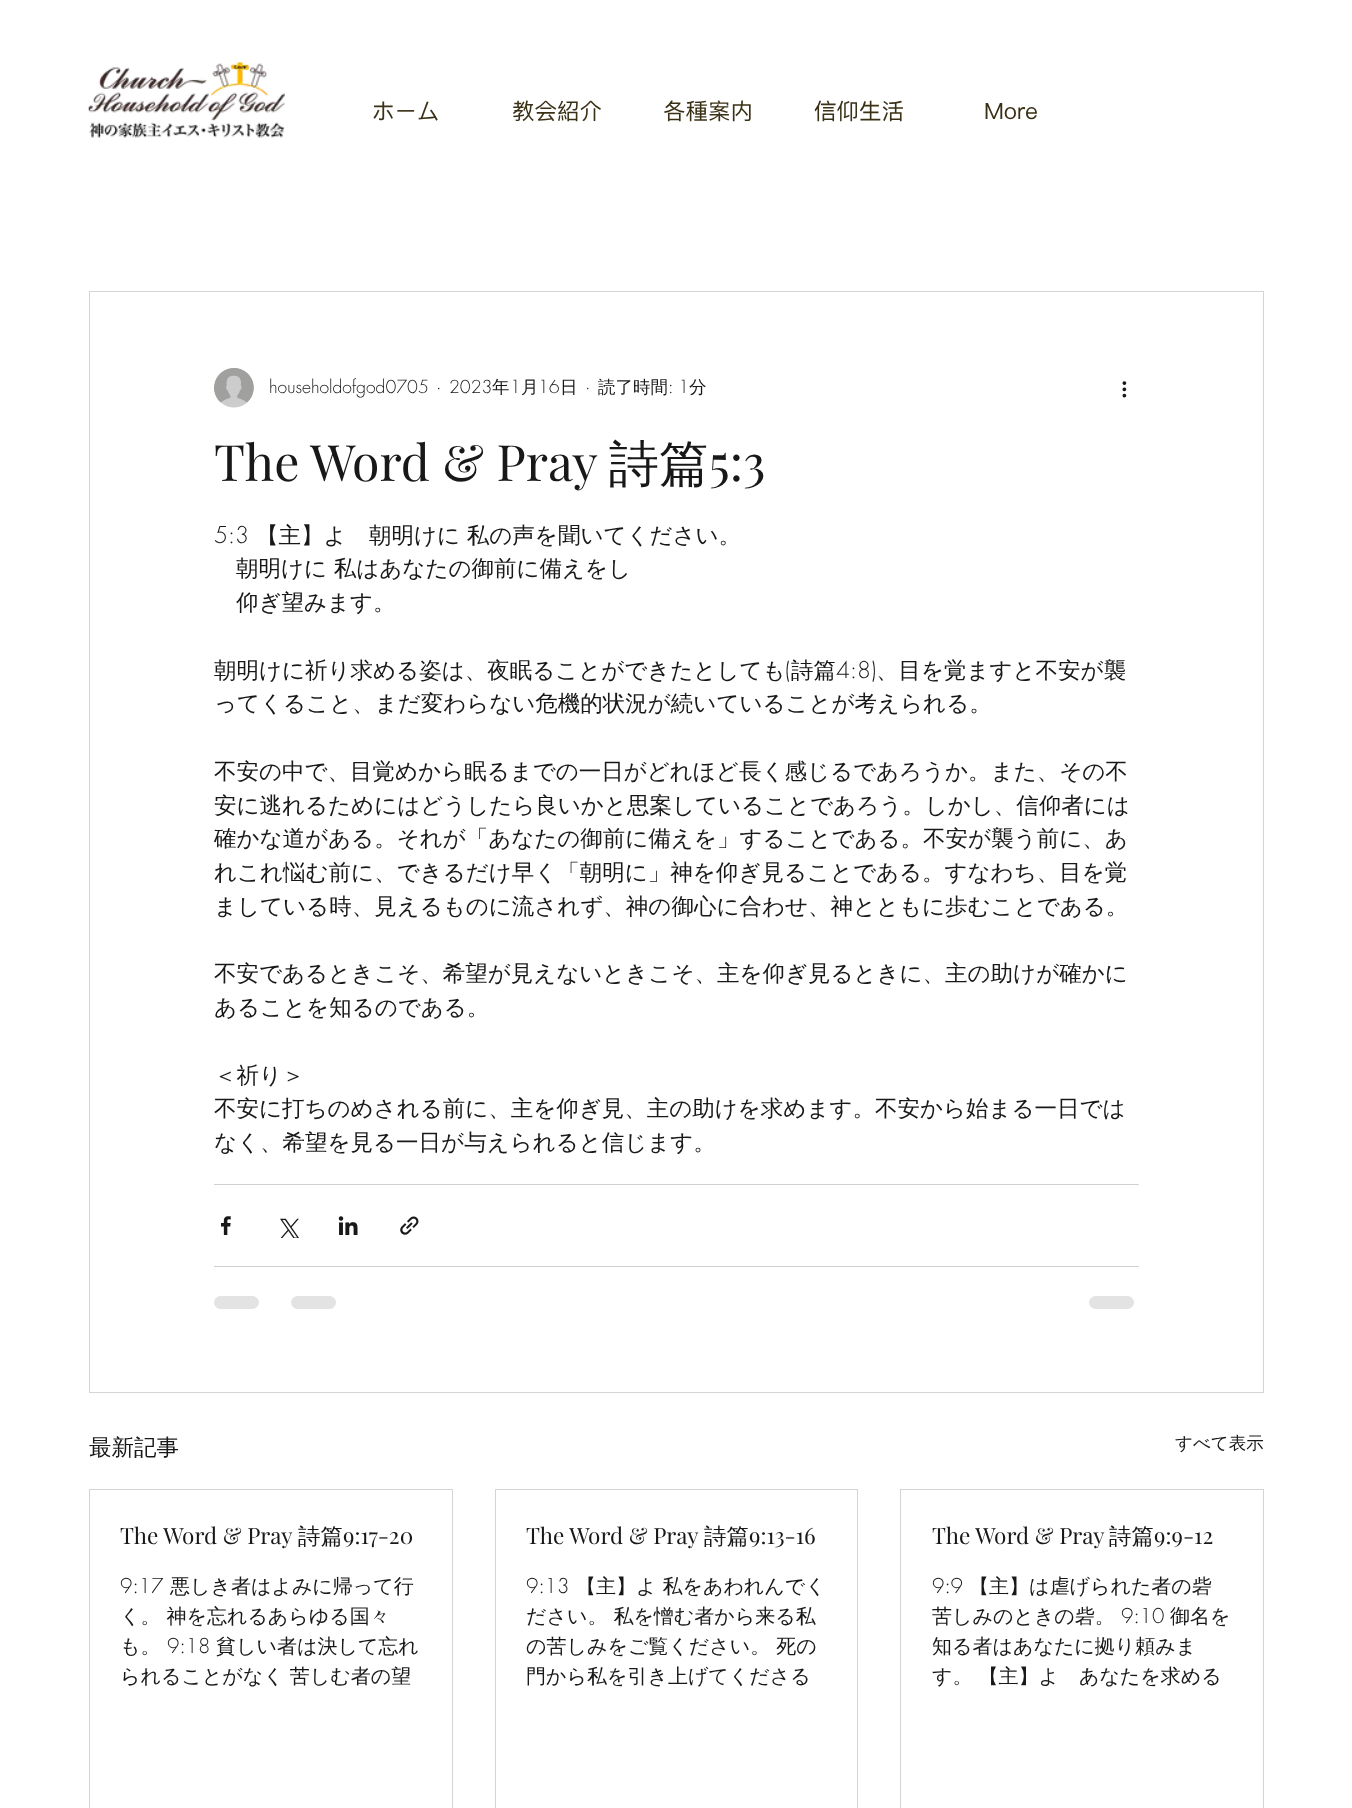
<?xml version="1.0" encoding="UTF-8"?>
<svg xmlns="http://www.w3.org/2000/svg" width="1352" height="1808">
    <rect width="100%" height="100%" fill="#FFFFFF"/>
    <image x="88" y="62" width="197" height="76" href="img_01.png"/>
    <text x="372" y="119" font-family="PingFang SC" font-size="22.5" fill="#393015">ホーム</text>
    <text x="512" y="119" font-family="PingFang SC" font-size="22.5" fill="#393015">教会紹介</text>
    <text x="663" y="119" font-family="PingFang SC" font-size="22.5" fill="#393015">各種案内</text>
    <text x="814" y="119" font-family="PingFang SC" font-size="22.5" fill="#393015">信仰生活</text>
    <text x="984" y="119" font-family="PingFang SC" font-size="22.5" fill="#393015">More</text>
    <rect x="89.5" y="291.5" width="1174" height="1101" fill="none" stroke="#D4D4D4"/>
    <image x="214" y="368" width="40" height="40" href="img_02.png"/>
    <text x="269" y="393" font-family="futura" font-size="17.5" font-weight="300" fill="#181818">householdofgod0705</text>
    <text x="436" y="393" font-family="futura" font-size="17.5" font-weight="300" fill="#181818">·</text>
    <text x="449" y="393" font-family="futura" font-size="17.5" font-weight="300" fill="#181818">2023</text>
    <text x="492" y="393" font-family="WenQuanYi Zen Hei" font-size="17.5" font-weight="500" fill="#181818">年</text>
    <text x="510" y="393" font-family="futura" font-size="17.5" font-weight="300" fill="#181818">1</text>
    <text x="521" y="393" font-family="WenQuanYi Zen Hei" font-size="17.5" font-weight="500" fill="#181818">月</text>
    <text x="538" y="393" font-family="futura" font-size="17.5" font-weight="300" fill="#181818">16</text>
    <text x="560" y="393" font-family="WenQuanYi Zen Hei" font-size="17.5" font-weight="500" fill="#181818">日</text>
    <text x="585" y="393" font-family="futura" font-size="17.5" font-weight="300" fill="#181818">·</text>
    <text x="598" y="393" font-family="WenQuanYi Zen Hei" font-size="17.5" font-weight="500" fill="#181818">読了時間</text>
    <text x="668" y="393" font-family="futura" font-size="17.5" font-weight="300" fill="#181818">: 1</text>
    <text x="689" y="393" font-family="WenQuanYi Zen Hei" font-size="17.5" font-weight="500" fill="#181818">分</text>
    <image x="1122" y="381" width="5" height="17" href="img_03.png"/>
    <text x="214" y="481" font-family="Playfair Display" font-size="50" fill="#181818">The Word &amp; Pray</text>
    <text x="609" y="481" font-family="WenQuanYi Zen Hei" font-size="50" font-weight="500" fill="#181818">詩篇</text>
    <text x="709" y="481" font-family="Playfair Display" font-size="50" fill="#181818">5:3</text>
    <text x="214" y="543" font-family="futura" font-size="22.5" font-weight="300" fill="#181818">5:3</text>
    <text x="256" y="543" font-family="WenQuanYi Zen Hei" font-size="22.5" font-weight="500" fill="#181818">【主】よ　朝明けに 私の声を聞いてください。</text>
    <text font-family="WenQuanYi Zen Hei" font-size="22.5" font-weight="500" fill="#181818">
        <tspan x="236" y="576">朝明けに 私はあなたの御前に備えをし</tspan>
        <tspan x="236" y="610">仰ぎ望みます。</tspan>
    </text>
    <text x="214" y="678" font-family="WenQuanYi Zen Hei" font-size="22.5" font-weight="500" fill="#181818">朝明けに祈り求める姿は、夜眠ることができたとしても</text>
    <text x="785" y="678" font-family="futura" font-size="22.5" font-weight="300" fill="#181818">(</text>
    <text x="791" y="678" font-family="WenQuanYi Zen Hei" font-size="22.5" font-weight="500" fill="#181818">詩篇</text>
    <text x="836" y="678" font-family="futura" font-size="22.5" font-weight="300" fill="#181818">4:8)</text>
    <text x="876" y="678" font-family="WenQuanYi Zen Hei" font-size="22.5" font-weight="500" fill="#181818">、目を覚ますと不安が襲</text>
    <text x="214" y="711" font-family="WenQuanYi Zen Hei" font-size="22.5" font-weight="500" fill="#181818">ってくること、まだ変わらない危機的状況が続いていることが考えられる。</text>
    <text font-family="WenQuanYi Zen Hei" font-size="22.5" font-weight="500" fill="#181818">
        <tspan x="214" y="779">不安の中で、目覚めから眠るまでの一日がどれほど長く感じるであろうか。また、その不</tspan>
        <tspan x="214" y="813">安に逃れるためにはどうしたら良いかと思案していることであろう。しかし、信仰者には</tspan>
        <tspan x="214" y="846">確かな道がある。それが「あなたの御前に備えを」することである。不安が襲う前に、あ</tspan>
        <tspan x="214" y="880">れこれ悩む前に、できるだけ早く「朝明に」神を仰ぎ見ることである。すなわち、目を覚</tspan>
        <tspan x="214" y="914">ましている時、見えるものに流されず、神の御心に合わせ、神とともに歩むことである。</tspan>
    </text>
    <text font-family="WenQuanYi Zen Hei" font-size="22.5" font-weight="500" fill="#181818">
        <tspan x="214" y="981">不安であるときこそ、希望が見えないときこそ、主を仰ぎ見るときに、主の助けが確かに</tspan>
        <tspan x="214" y="1015">あることを知るのである。</tspan>
    </text>
    <text font-family="WenQuanYi Zen Hei" font-size="22.5" font-weight="500" fill="#181818">
        <tspan x="214" y="1083">＜祈り＞</tspan>
        <tspan x="214" y="1116">不安に打ちのめされる前に、主を仰ぎ見、主の助けを求めます。不安から始まる一日では</tspan>
        <tspan x="214" y="1150">なく、希望を見る一日が与えられると信じます。</tspan>
    </text>
    <rect x="214" y="1184" width="925" height="1" fill="#D1D1D1"/>
    <image x="221" y="1216" width="10" height="19" href="img_04.png"/>
    <image x="280" y="1218" width="19" height="20" href="img_05.png"/>
    <image x="338" y="1216" width="20" height="19" href="img_06.png"/>
    <image x="400" y="1216" width="19" height="19" href="img_07.png"/>
    <rect x="214" y="1266" width="925" height="1" fill="#D1D1D1"/>
    <rect x="214" y="1296" width="45" height="13" rx="6.5" fill="#E3E3E3"/>
    <rect x="291" y="1296" width="45" height="13" rx="6.5" fill="#E3E3E3"/>
    <rect x="1089" y="1296" width="45" height="13" rx="6.5" fill="#E3E3E3"/>
    <text x="89" y="1455" font-family="WenQuanYi Zen Hei" font-size="22.5" font-weight="500" fill="#181818">最新記事</text>
    <text x="1175" y="1449" font-family="WenQuanYi Zen Hei" font-size="17.5" font-weight="500" fill="#181818">すべて表示</text>
    <rect x="89.5" y="1489.5" width="363" height="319" fill="none" stroke="#D4D4D4"/>
    <text x="120" y="1544" font-family="Playfair Display" font-size="22.5" fill="#181818">The Word &amp; Pray</text>
    <text x="298" y="1544" font-family="WenQuanYi Zen Hei" font-size="22.5" font-weight="500" fill="#181818">詩篇</text>
    <text x="343" y="1544" font-family="Playfair Display" font-size="22.5" fill="#181818">9:17-20</text>
    <text x="120" y="1593" font-family="futura" font-size="20" font-weight="300" fill="#181818">9:17</text>
    <text x="170" y="1593" font-family="WenQuanYi Zen Hei" font-size="20" font-weight="500" fill="#181818">悪しき者はよみに帰って行</text>
    <text font-family="WenQuanYi Zen Hei" font-size="20" font-weight="500" fill="#181818">
        <tspan x="120" y="1623">く。 神を忘れるあらゆる国々</tspan>
        <tspan x="120" y="1653">も。</tspan>
    </text>
    <text x="167" y="1653" font-family="futura" font-size="20" font-weight="300" fill="#181818">9:18</text>
    <text x="216" y="1653" font-family="WenQuanYi Zen Hei" font-size="20" font-weight="500" fill="#181818">貧しい者は決して忘れ</text>
    <text x="120" y="1683" font-family="WenQuanYi Zen Hei" font-size="20" font-weight="500" fill="#181818">られることがなく 苦しむ者の望</text>
    <rect x="495.5" y="1489.5" width="362" height="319" fill="none" stroke="#D4D4D4"/>
    <text x="526" y="1544" font-family="Playfair Display" font-size="22.5" fill="#181818">The Word &amp; Pray</text>
    <text x="704" y="1544" font-family="WenQuanYi Zen Hei" font-size="22.5" font-weight="500" fill="#181818">詩篇</text>
    <text x="749" y="1544" font-family="Playfair Display" font-size="22.5" fill="#181818">9:13-16</text>
    <text x="526" y="1593" font-family="futura" font-size="20" font-weight="300" fill="#181818">9:13</text>
    <text x="576" y="1593" font-family="WenQuanYi Zen Hei" font-size="20" font-weight="500" fill="#181818">【主】よ 私をあわれんでく</text>
    <text font-family="WenQuanYi Zen Hei" font-size="20" font-weight="500" fill="#181818">
        <tspan x="526" y="1623">ださい。 私を憎む者から来る私</tspan>
        <tspan x="526" y="1653">の苦しみをご覧ください。 死の</tspan>
        <tspan x="526" y="1683">門から私を引き上げてくださる</tspan>
    </text>
    <rect x="900.5" y="1489.5" width="363" height="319" fill="none" stroke="#D4D4D4"/>
    <text x="932" y="1544" font-family="Playfair Display" font-size="22.5" fill="#181818">The Word &amp; Pray</text>
    <text x="1109" y="1544" font-family="WenQuanYi Zen Hei" font-size="22.5" font-weight="500" fill="#181818">詩篇</text>
    <text x="1154" y="1544" font-family="Playfair Display" font-size="22.5" fill="#181818">9:9-12</text>
    <text x="932" y="1593" font-family="futura" font-size="20" font-weight="300" fill="#181818">9:9</text>
    <text x="969" y="1593" font-family="WenQuanYi Zen Hei" font-size="20" font-weight="500" fill="#181818">【主】は虐げられた者の砦</text>
    <text x="932" y="1623" font-family="WenQuanYi Zen Hei" font-size="20" font-weight="500" fill="#181818">苦しみのときの砦。</text>
    <text x="1121" y="1623" font-family="futura" font-size="20" font-weight="300" fill="#181818">9:10</text>
    <text x="1170" y="1623" font-family="WenQuanYi Zen Hei" font-size="20" font-weight="500" fill="#181818">御名を</text>
    <text font-family="WenQuanYi Zen Hei" font-size="20" font-weight="500" fill="#181818">
        <tspan x="932" y="1653">知る者はあなたに拠り頼みま</tspan>
        <tspan x="932" y="1683">す。 【主】よ　あなたを求める</tspan>
    </text>
</svg>
